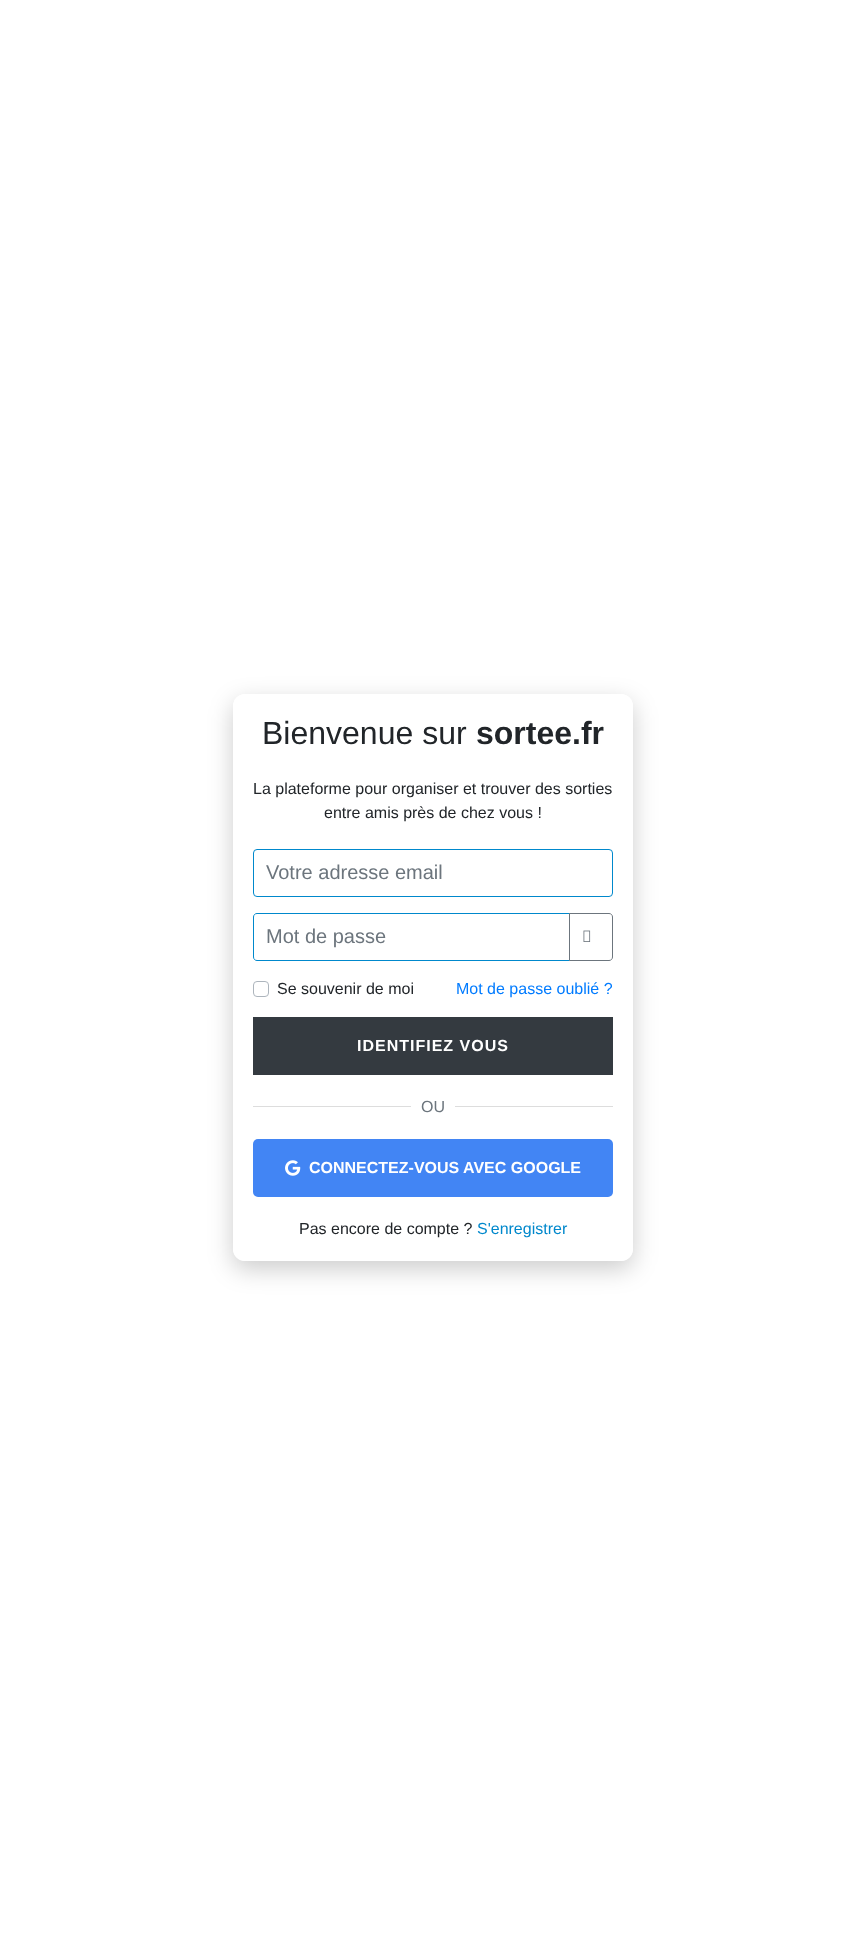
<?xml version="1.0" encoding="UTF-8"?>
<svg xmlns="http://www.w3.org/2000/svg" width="866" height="1955">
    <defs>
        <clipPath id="clip1"><path d="M 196 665 H 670 V 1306 H 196 Z M 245 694 H 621 C 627.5 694 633 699.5 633 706 V 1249 C 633 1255.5 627.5 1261 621 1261 H 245 C 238.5 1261 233 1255.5 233 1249 V 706 C 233 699.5 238.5 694 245 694 Z" clip-rule="evenodd"/></clipPath>
        <filter id="blur1" x="-50%" y="-200%" width="200%" height="500%"><feGaussianBlur stdDeviation="12"/></filter>
    </defs>
    <rect width="100%" height="100%" fill="#FFFFFF"/>
    <g clip-path="url(#clip1)">
        <rect x="233" y="702" width="400" height="567" rx="12" fill="#000000" fill-opacity="0.2" filter="url(#blur1)"/>
    </g>
    <rect x="233" y="694" width="400" height="567" rx="12" fill="#FFFFFF" fill-opacity="0.9"/>
    <text x="262" y="744" font-family="Liberation Sans" font-size="32" fill="#212529">Bienvenue sur</text>
    <text x="476" y="744" font-family="Liberation Sans" font-size="32" font-weight="700" fill="#212529">sortee.fr</text>
    <text x="253" y="794" font-family="Liberation Sans" font-size="16" fill="#212529">La plateforme pour organiser et trouver des sorties</text>
    <text x="324" y="818" font-family="Liberation Sans" font-size="16" fill="#212529">entre amis près de chez vous !</text>
    <rect x="253.5" y="849.5" width="359" height="47" rx="3.5" fill="none" stroke="#0088CC"/>
    <text x="266" y="879" font-family="Liberation Sans" font-size="20" fill="#6C757D">Votre adresse email</text>
    <path d="M 257 913.5 H 569.5 V 960.5 H 257 C 255 960.5 253.5 959 253.5 957 V 917 C 253.5 915 255 913.5 257 913.5 Z" fill="none" stroke="#0088CC"/>
    <text x="266" y="943" font-family="Liberation Sans" font-size="20" fill="#6C757D">Mot de passe</text>
    <path d="M 569.5 913.5 H 609 C 611 913.5 612.5 915 612.5 917 V 957 C 612.5 959 611 960.5 609 960.5 H 569.5 Z" fill="none" stroke="#6C757D"/>
    <image x="583" y="930" width="8" height="12" href="img_01.png"/>
    <rect x="253.5" y="981.5" width="15" height="15" rx="3.5" fill="none" stroke="#ADB5BD"/>
    <text x="277" y="994" font-family="Liberation Sans" font-size="16" fill="#212529">Se souvenir de moi</text>
    <text x="456" y="994" font-family="Liberation Sans" font-size="16" fill="#007BFF">Mot de passe oublié ?</text>
    <rect x="253" y="1017" width="360" height="58" fill="#343A40"/>
    <text x="357" y="1051" font-family="Liberation Sans" font-size="16" font-weight="700" letter-spacing="1" fill="#FFFFFF">IDENTIFIEZ VOUS</text>
    <rect x="253" y="1106" width="158" height="1" fill="#DDDDDD"/>
    <text x="421" y="1112" font-family="Liberation Sans" font-size="16" fill="#6C757D">OU</text>
    <rect x="455" y="1106" width="158" height="1" fill="#DDDDDD"/>
    <rect x="253" y="1139" width="360" height="58" rx="5" fill="#4285F4"/>
    <image x="285" y="1160" width="16" height="16" href="img_02.png"/>
    <text x="309" y="1173" font-family="Liberation Sans" font-size="16" font-weight="700" fill="#FFFFFF">CONNECTEZ-VOUS AVEC GOOGLE</text>
    <text x="299" y="1234" font-family="Liberation Sans" font-size="16" fill="#212529">Pas encore de compte ?</text>
    <text x="477" y="1234" font-family="Liberation Sans" font-size="16" fill="#0088CC">S'enregistrer</text>
</svg>
